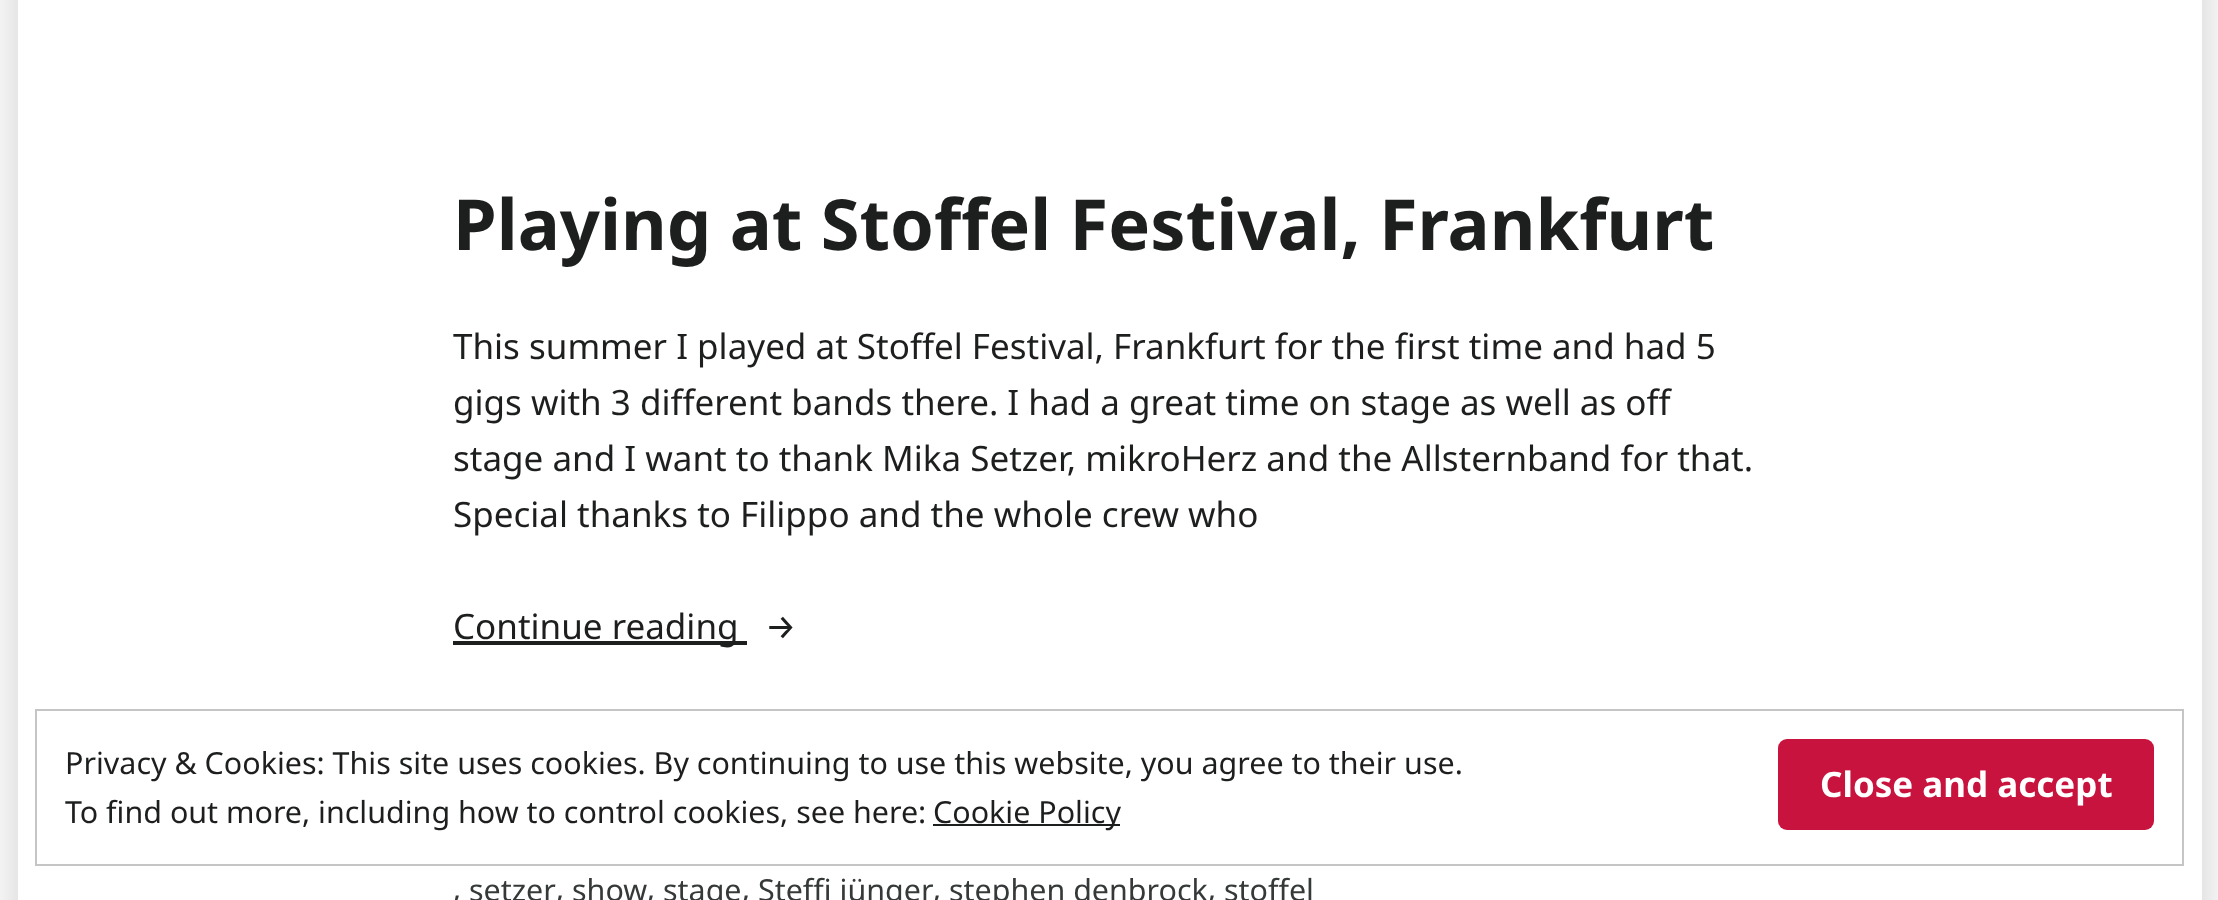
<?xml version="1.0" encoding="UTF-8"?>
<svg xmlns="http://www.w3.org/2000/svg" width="2218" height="900">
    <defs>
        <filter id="blur1" x="-50%" y="-200%" width="200%" height="500%"><feGaussianBlur stdDeviation="26"/></filter>
    </defs>
    <rect width="100%" height="100%" fill="#FFFFFF"/>
    <rect x="18" y="-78" width="2184" height="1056" fill="#000000" fill-opacity="0.2" filter="url(#blur1)"/>
    <rect x="18" y="0" width="2184" height="900" fill="#FFFFFF"/>
    <text x="453" y="250" font-family="Noto Sans" font-size="70.4" font-weight="700" fill="#1D1E1E">Playing at Stoffel Festival, Frankfurt</text>
    <text font-family="Noto Sans" font-size="35" fill="#1D1E1E">
        <tspan x="453" y="359">This summer I played at Stoffel Festival, Frankfurt for the first time and had 5</tspan>
        <tspan x="453" y="415">gigs with 3 different bands there. I had a great time on stage as well as off</tspan>
        <tspan x="453" y="471">stage and I want to thank Mika Setzer, mikroHerz and the Allsternband for that.</tspan>
        <tspan x="453" y="527">Special thanks to Filippo and the whole crew who</tspan>
    </text>
    <rect x="453" y="641" width="294" height="4" fill="#1D1E1E"/>
    <text x="453" y="639" font-family="Noto Sans" font-size="35" fill="#1D1E1E">Continue reading</text>
    <text x="765" y="639" font-family="Fira Sans" font-size="35" fill="#1D1E1E">→</text>
    <text x="453" y="899" font-family="Noto Sans" font-size="30.45" fill="#363939">,</text>
    <text x="469" y="901" font-family="Noto Sans" font-size="30.45" fill="#363939">setzer</text>
    <text x="556" y="899" font-family="Noto Sans" font-size="30.45" fill="#363939">,</text>
    <text x="572" y="901" font-family="Noto Sans" font-size="30.45" fill="#363939">show</text>
    <text x="647" y="899" font-family="Noto Sans" font-size="30.45" fill="#363939">,</text>
    <text x="663" y="901" font-family="Noto Sans" font-size="30.45" fill="#363939">stage</text>
    <text x="742" y="899" font-family="Noto Sans" font-size="30.45" fill="#363939">,</text>
    <text x="758" y="901" font-family="Noto Sans" font-size="30.45" fill="#363939">Steffi jünger</text>
    <text x="933" y="899" font-family="Noto Sans" font-size="30.45" fill="#363939">,</text>
    <text x="949" y="901" font-family="Noto Sans" font-size="30.45" fill="#363939">stephen denbrock</text>
    <text x="1208" y="899" font-family="Noto Sans" font-size="30.45" fill="#363939">,</text>
    <text x="1224" y="901" font-family="Noto Sans" font-size="30.45" fill="#363939">stoffel</text>
    <rect x="36" y="710" width="2147" height="155" fill="none" stroke="#C5C5C5" stroke-width="2"/>
    <text x="65" y="774" font-family="Noto Sans" font-size="30.45" fill="#1D1E1E">Privacy &amp; Cookies: This site uses cookies. By continuing to use this website, you agree to their use.</text>
    <rect x="1778" y="739" width="376" height="91" rx="9" fill="#C8133E"/>
    <text x="1820" y="797" font-family="Noto Sans" font-size="35" font-weight="700" fill="#FFFFFF">Close and accept</text>
    <text x="65" y="823" font-family="Noto Sans" font-size="30.45" fill="#1D1E1E">To find out more, including how to control cookies, see here:</text>
    <rect x="933" y="824" width="187" height="2" fill="#1D1E1E"/>
    <text x="933" y="823" font-family="Noto Sans" font-size="30.45" fill="#1D1E1E">Cookie Policy</text>
</svg>
